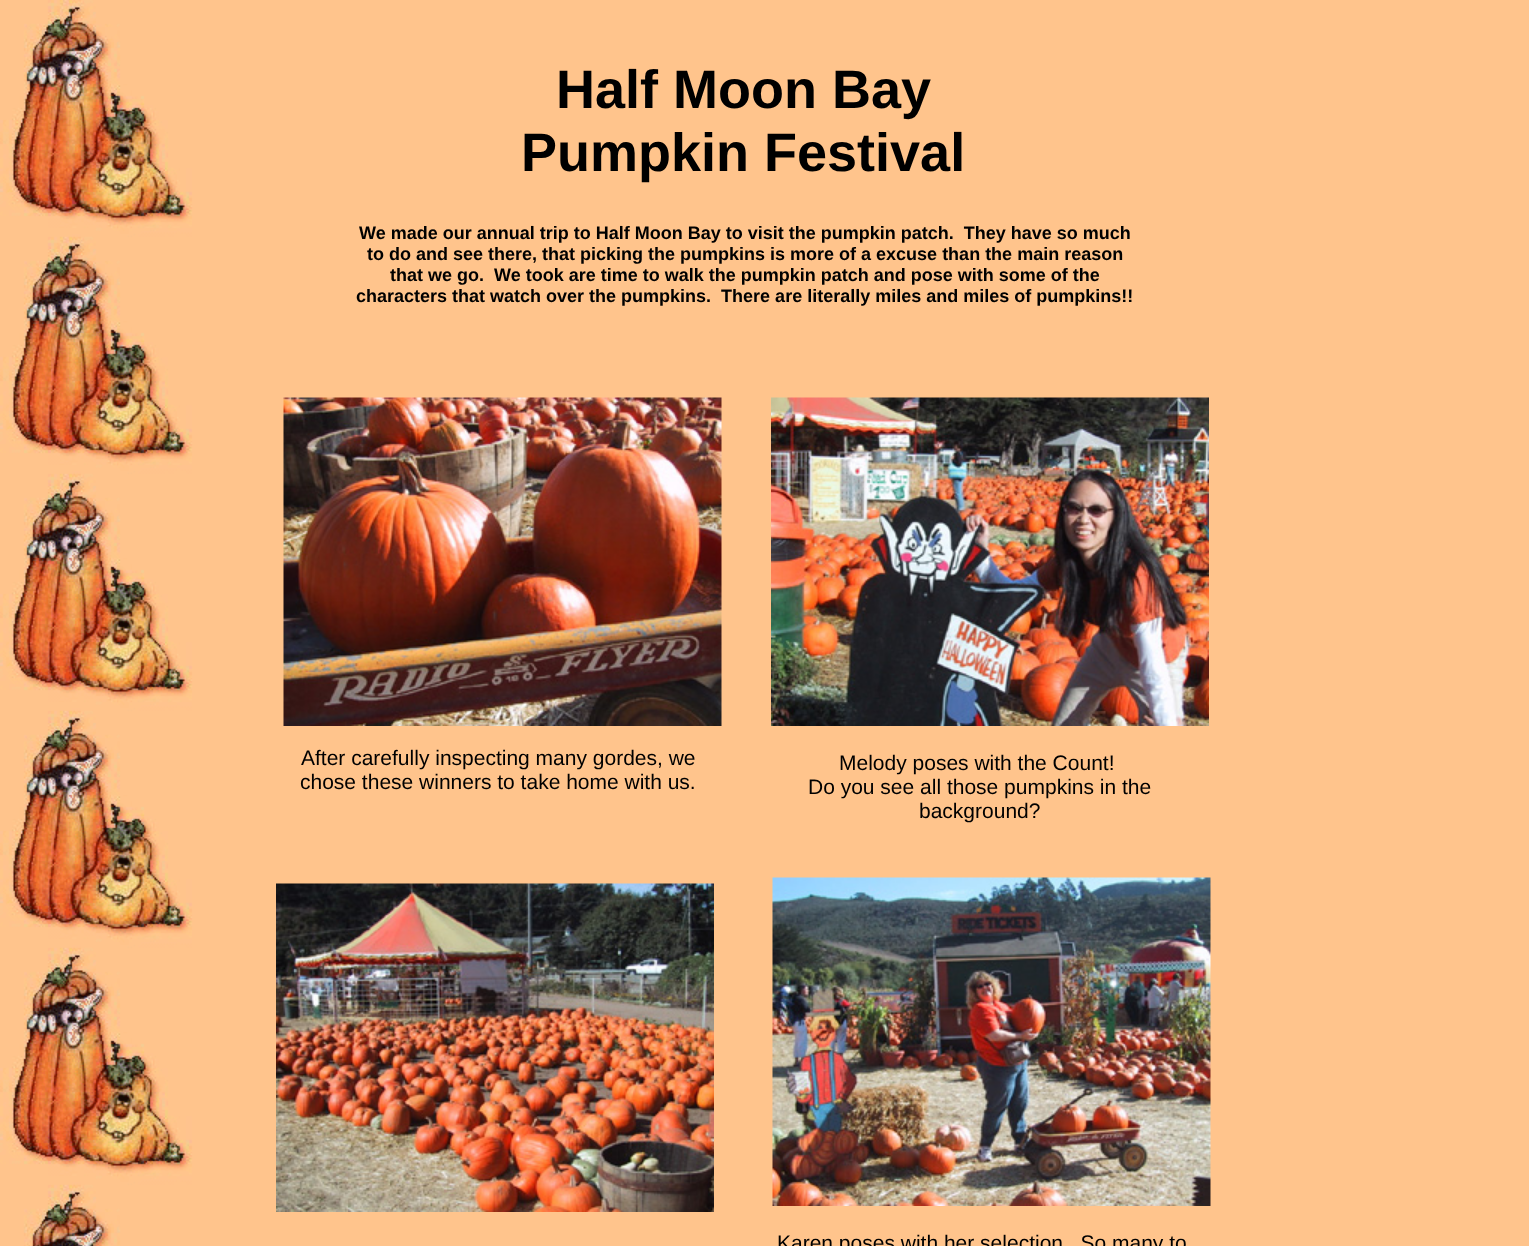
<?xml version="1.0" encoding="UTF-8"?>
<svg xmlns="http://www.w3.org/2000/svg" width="1529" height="1246">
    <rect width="100%" height="100%" fill="#FFFFFF"/>
    <image x="0" y="0" width="1529" height="1246" href="img_01.png"/>
    <text x="556" y="108" font-family="Liberation Sans" font-size="54" font-weight="700" fill="#000000">Half Moon Bay</text>
    <text x="521" y="171" font-family="Liberation Sans" font-size="54" font-weight="700" fill="#000000">Pumpkin Festival</text>
    <text x="359" y="239" font-family="Liberation Sans" font-size="18" font-weight="700" fill="#000000" xml:space="preserve">We made our annual trip to Half Moon Bay to visit the pumpkin patch.  They have so much</text>
    <text x="367" y="260" font-family="Liberation Sans" font-size="18" font-weight="700" fill="#000000">to do and see there, that picking the pumpkins is more of a excuse than the main reason</text>
    <text x="390" y="281" font-family="Liberation Sans" font-size="18" font-weight="700" fill="#000000" xml:space="preserve">that we go.  We took are time to walk the pumpkin patch and pose with some of the</text>
    <text x="356" y="302" font-family="Liberation Sans" font-size="18" font-weight="700" fill="#000000" xml:space="preserve">characters that watch over the pumpkins.  There are literally miles and miles of pumpkins!!</text>
    <image x="283" y="397" width="439" height="329" href="img_02.png"/>
    <image x="771" y="397" width="438" height="329" href="img_03.png"/>
    <text x="301" y="765" font-family="Liberation Sans" font-size="21" fill="#000000">After carefully inspecting many gordes, we</text>
    <text x="300" y="789" font-family="Liberation Sans" font-size="21" fill="#000000">chose these winners to take home with us.</text>
    <text x="839" y="770" font-family="Liberation Sans" font-size="21" fill="#000000">Melody poses with the Count!</text>
    <text x="808" y="794" font-family="Liberation Sans" font-size="21" fill="#000000">Do you see all those pumpkins in the</text>
    <text x="919" y="818" font-family="Liberation Sans" font-size="21" fill="#000000">background?</text>
    <image x="276" y="883" width="438" height="329" href="img_04.png"/>
    <image x="772" y="877" width="439" height="329" href="img_05.png"/>
    <text x="777" y="1250" font-family="Liberation Sans" font-size="21" fill="#000000" xml:space="preserve">Karen poses with her selection.  So many to</text>
</svg>
